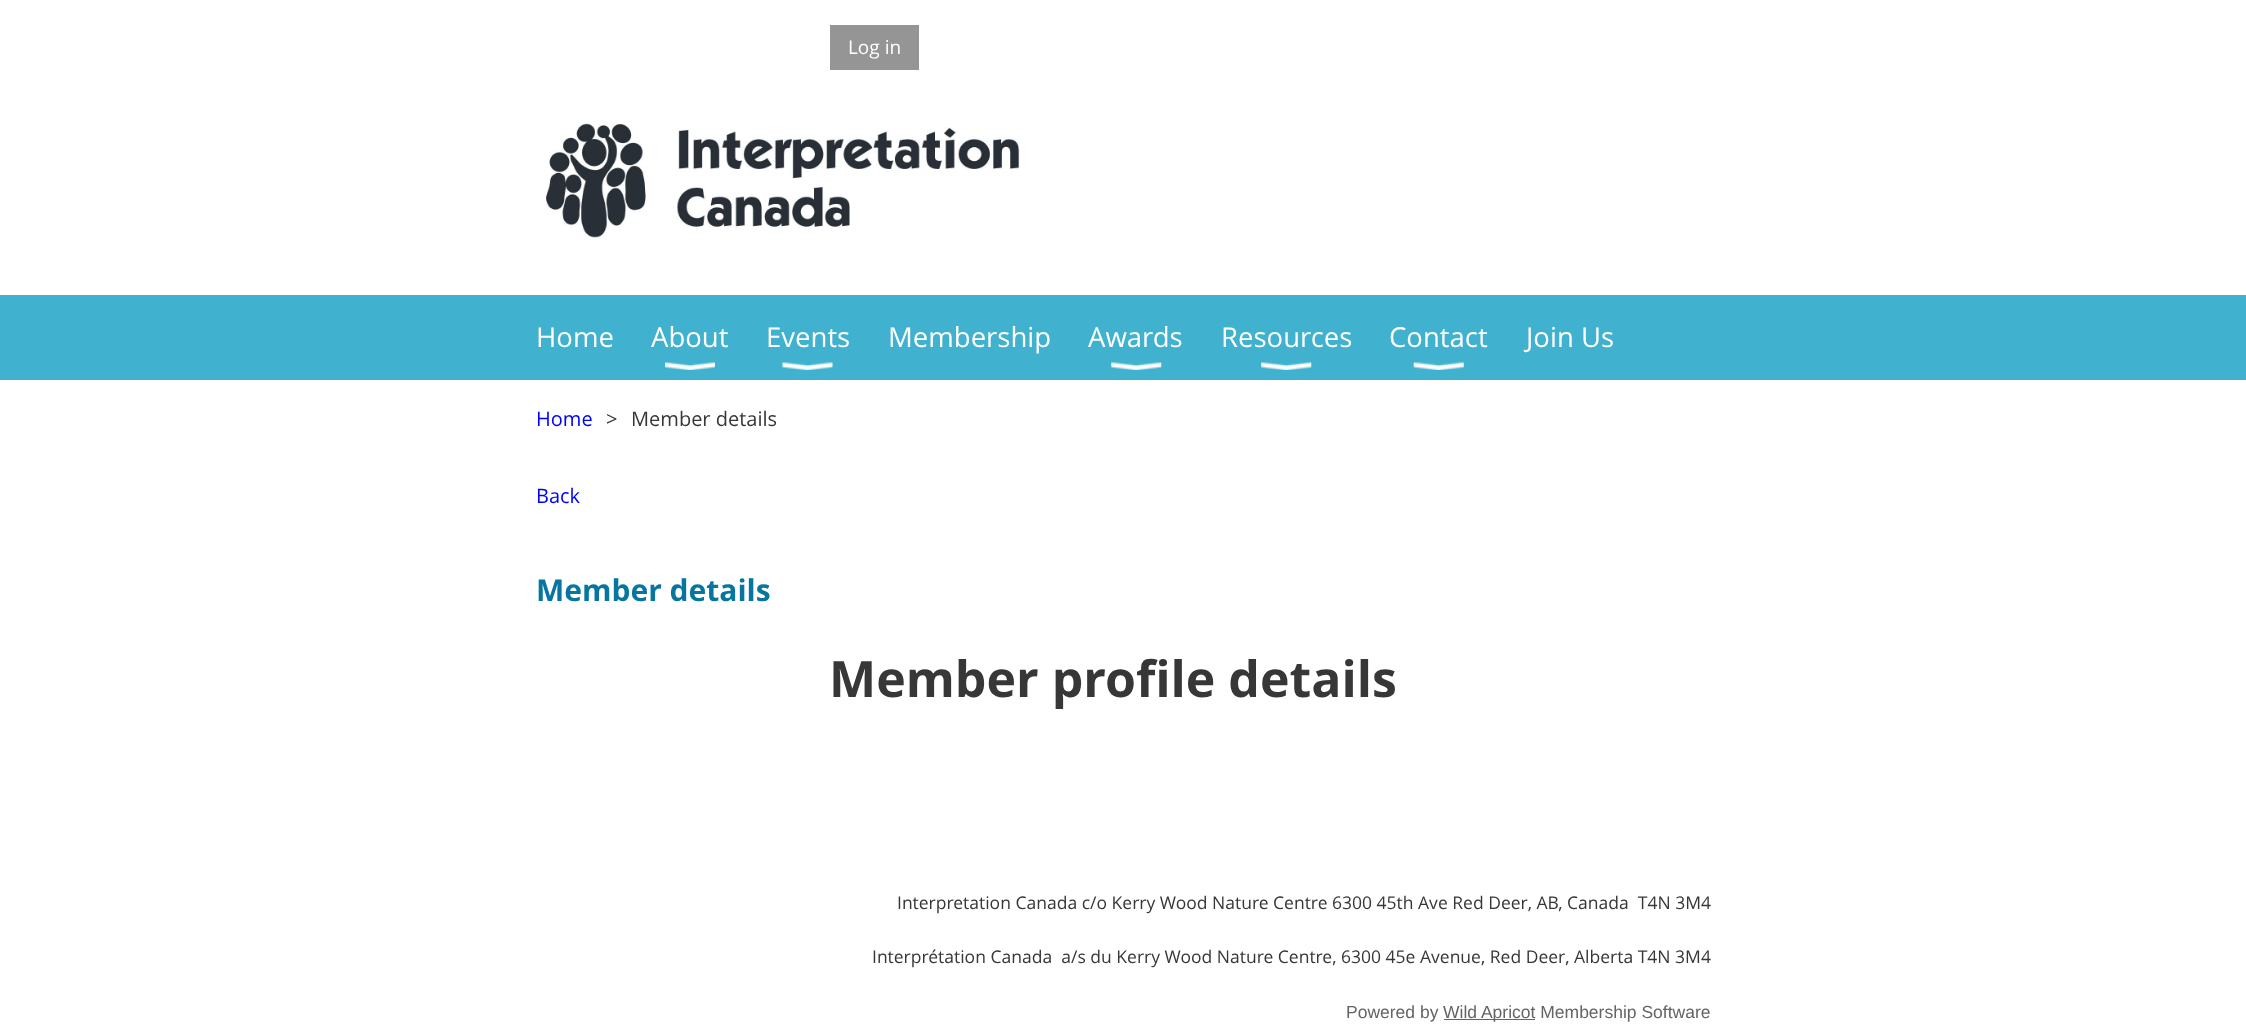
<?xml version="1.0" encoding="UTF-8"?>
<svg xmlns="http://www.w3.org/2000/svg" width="2246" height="1030">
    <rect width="100%" height="100%" fill="#FFFFFF"/>
    <rect x="830" y="25" width="89" height="45" fill="#959595"/>
    <text x="848" y="54" font-family="Open Sans" font-size="19" fill="#FFFFFF">Log in</text>
    <image x="546" y="123" width="474" height="115" href="img_01.png"/>
    <rect x="0" y="295" width="2246" height="85" fill="#40B2CF"/>
    <text x="536" y="347" font-family="Open Sans" font-size="27.5" fill="#FFFFFF">Home</text>
    <text x="651" y="347" font-family="Open Sans" font-size="27.5" fill="#FFFFFF">About</text>
    <image x="665" y="362" width="50" height="8" href="img_02.png"/>
    <text x="766" y="347" font-family="Open Sans" font-size="27.5" fill="#FFFFFF">Events</text>
    <image x="782" y="362" width="51" height="8" href="img_03.png"/>
    <text x="888" y="347" font-family="Open Sans" font-size="27.5" fill="#FFFFFF">Membership</text>
    <text x="1088" y="347" font-family="Open Sans" font-size="27.5" fill="#FFFFFF">Awards</text>
    <image x="1111" y="362" width="51" height="8" href="img_04.png"/>
    <text x="1221" y="347" font-family="Open Sans" font-size="27.5" fill="#FFFFFF">Resources</text>
    <image x="1261" y="362" width="51" height="8" href="img_04.png"/>
    <text x="1389" y="347" font-family="Open Sans" font-size="27.5" fill="#FFFFFF">Contact</text>
    <image x="1413" y="362" width="51" height="8" href="img_05.png"/>
    <text x="1526" y="347" font-family="Open Sans" font-size="27.5" fill="#FFFFFF">Join Us</text>
    <text x="536" y="426" font-family="Open Sans" font-size="20" fill="#0000FF">Home</text>
    <text x="606" y="426" font-family="Open Sans" font-size="20" fill="#373737">&gt;</text>
    <text x="631" y="426" font-family="Open Sans" font-size="20" fill="#373737">Member details</text>
    <text x="536" y="503" font-family="Open Sans" font-size="20" fill="#0000FF">Back</text>
    <text x="536" y="601" font-family="Open Sans" font-size="30" font-weight="700" fill="#0676A0">Member details</text>
    <text x="829" y="697" font-family="Open Sans" font-size="50" font-weight="700" fill="#373737">Member profile details</text>
    <text x="897" y="909" font-family="Open Sans" font-size="17.5" fill="#373737" xml:space="preserve">Interpretation Canada c/o Kerry Wood Nature Centre 6300 45th Ave Red Deer, AB, Canada  T4N 3M4</text>
    <text x="872" y="963" font-family="Open Sans" font-size="17.5" fill="#373737" xml:space="preserve">Interprétation Canada  a/s du Kerry Wood Nature Centre, 6300 45e Avenue, Red Deer, Alberta T4N 3M4</text>
    <text x="1346" y="1018" font-family="Liberation Sans" font-size="17.5" fill="#646464">Powered by</text>
    <rect x="1444" y="1019" width="91" height="1" fill="#646464"/>
    <text x="1443" y="1018" font-family="Liberation Sans" font-size="17.5" fill="#646464">Wild Apricot Membership Software</text>
</svg>
